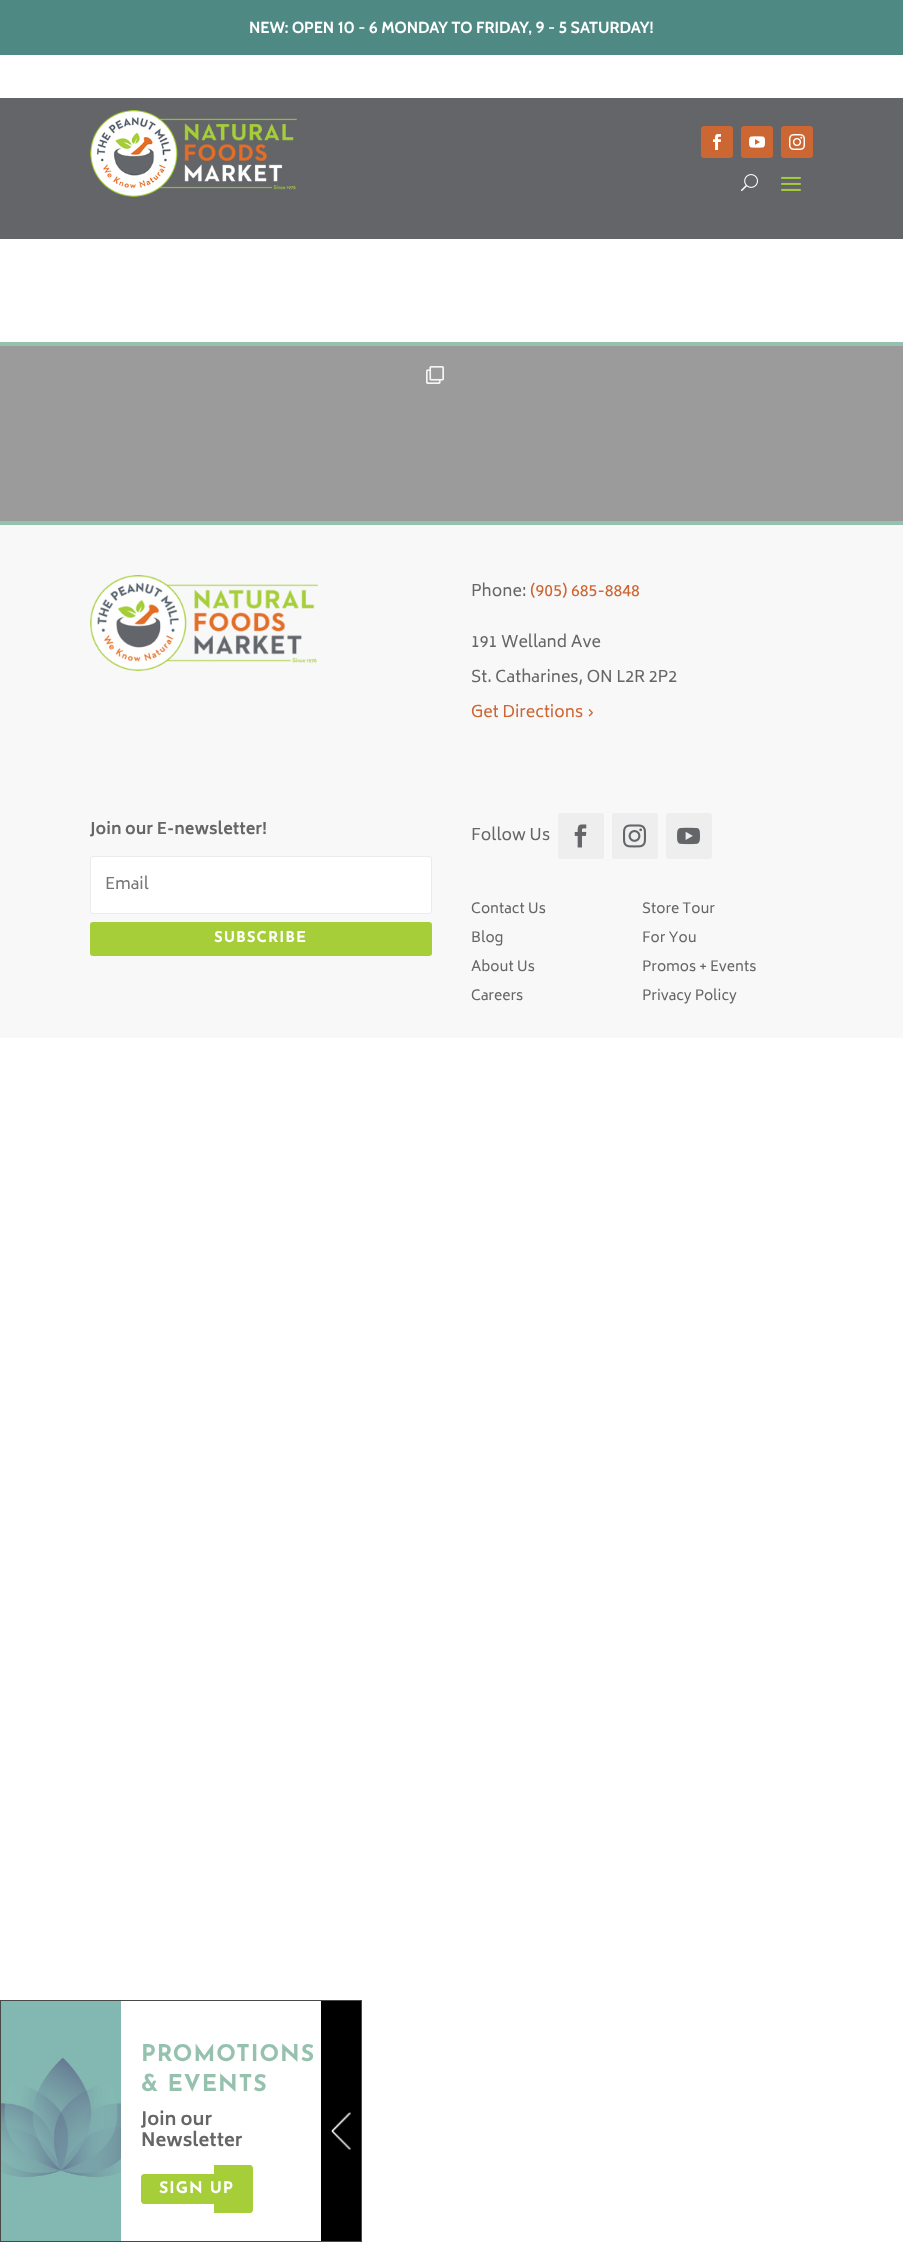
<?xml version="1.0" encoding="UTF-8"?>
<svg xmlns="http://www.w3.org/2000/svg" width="903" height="2242">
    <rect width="100%" height="100%" fill="#FFFFFF"/>
    <rect x="0" y="0" width="903" height="55" fill="#4E8984"/>
    <text x="249" y="33" font-family="Cabin" font-size="16" font-weight="700" fill="#FFFFFF">NEW: OPEN 10 - 6 MONDAY TO FRIDAY, 9 - 5 SATURDAY!</text>
    <rect x="0" y="98" width="903" height="141" fill="#636569"/>
    <image x="90" y="110" width="207" height="87" href="img_01.png"/>
    <rect x="701" y="126" width="32" height="32" rx="3" fill="#CC6633"/>
    <image x="713" y="134" width="8" height="16" href="img_02.png"/>
    <rect x="741" y="126" width="32" height="32" rx="3" fill="#CC6633"/>
    <image x="749" y="136" width="16" height="12" href="img_03.png"/>
    <rect x="781" y="126" width="32" height="32" rx="3" fill="#CC6633"/>
    <image x="789" y="134" width="16" height="16" href="img_04.png"/>
    <image x="741" y="174" width="17" height="18" href="img_05.png"/>
    <image x="781" y="176" width="20" height="15" href="img_06.png"/>
    <rect x="0" y="342" width="903" height="4" fill="#97C1AF"/>
    <rect x="0" y="521" width="903" height="4" fill="#97C1AF"/>
    <rect x="0" y="346" width="903" height="175" fill="#9B9B9B"/>
    <image x="426" y="366" width="18" height="18" href="img_07.png"/>
    <rect x="0" y="525" width="903" height="513" fill="#F8F8F8"/>
    <image x="90" y="575" width="228" height="96" href="img_08.png"/>
    <text x="471" y="596" font-family="Biryani" font-size="16" fill="#666666">Phone:</text>
    <text x="530" y="596" font-family="Biryani" font-size="16" fill="#CC6633">(905) 685-8848</text>
    <text x="471" y="647" font-family="Biryani" font-size="16" fill="#666666">191 Welland Ave</text>
    <text x="471" y="682" font-family="Biryani" font-size="16" fill="#666666">St. Catharines, ON L2R 2P2</text>
    <text x="471" y="717" font-family="Biryani" font-size="16" fill="#CC6633">Get Directions ›</text>
    <text x="90" y="834" font-family="Biryani" font-size="16" font-weight="700" fill="#666666">Join our E-newsletter!</text>
    <rect x="90.5" y="856.5" width="341" height="57" rx="2.5" fill="#FFFFFF" stroke="#EBEBEB"/>
    <text x="105" y="889" font-family="Biryani" font-size="16" fill="#757575">Email</text>
    <rect x="90" y="922" width="342" height="34" rx="3" fill="#A6CE39"/>
    <text x="214" y="942" font-family="Josefin Sans" font-size="15" font-weight="700" letter-spacing="1" fill="#FFFFFF">SUBSCRIBE</text>
    <text x="471" y="840" font-family="Biryani" font-size="16" fill="#666666">Follow Us</text>
    <rect x="558" y="813" width="46" height="46" rx="3" fill="#EEEEEE"/>
    <image x="574" y="824" width="13" height="24" href="img_09.png"/>
    <rect x="612" y="813" width="46" height="46" rx="3" fill="#EEEEEE"/>
    <image x="623" y="824" width="23" height="24" href="img_10.png"/>
    <rect x="666" y="813" width="46" height="46" rx="3" fill="#EEEEEE"/>
    <image x="677" y="827" width="23" height="18" href="img_11.png"/>
    <text x="471" y="913" font-family="Biryani" font-size="14" fill="#666666">Contact Us</text>
    <text x="642" y="913" font-family="Biryani" font-size="14" fill="#666666">Store Tour</text>
    <text x="471" y="942" font-family="Biryani" font-size="14" fill="#666666">Blog</text>
    <text x="642" y="942" font-family="Biryani" font-size="14" fill="#666666">For You</text>
    <text x="471" y="971" font-family="Biryani" font-size="14" fill="#666666">About Us</text>
    <text x="642" y="971" font-family="Biryani" font-size="14" fill="#666666">Promos + Events</text>
    <text x="471" y="1000" font-family="Biryani" font-size="14" fill="#666666">Careers</text>
    <text x="642" y="1000" font-family="Biryani" font-size="14" fill="#666666">Privacy Policy</text>
    <rect x="0.5" y="2000.5" width="361" height="241" fill="none" stroke="#484A48"/>
    <image x="1" y="2001" width="120" height="240" href="img_12.png"/>
    <text font-family="Josefin Sans" font-size="23" font-weight="700" letter-spacing="1" fill="#97C1AF">
        <tspan x="141" y="2061">PROMOTIONS</tspan>
        <tspan x="141" y="2091">&amp; EVENTS</tspan>
    </text>
    <text font-family="Biryani" font-size="18" font-weight="700" fill="#666666">
        <tspan x="141" y="2125">Join our</tspan>
        <tspan x="141" y="2146">Newsletter</tspan>
    </text>
    <path d="M 144 2174 H 234 V 2204 H 144 C 142.5 2204 141 2202.5 141 2201 V 2177 C 141 2175.5 142.5 2174 144 2174 Z" fill="#A6CE39"/>
    <path d="M 214 2165 H 250 C 251.5 2165 253 2166.5 253 2168 V 2210 C 253 2211.5 251.5 2213 250 2213 H 214 Z" fill="#A6CE39"/>
    <text x="159" y="2193" font-family="Josefin Sans" font-size="16" font-weight="700" letter-spacing="1" fill="#FFFFFF">SIGN UP</text>
    <rect x="321" y="2001" width="40" height="240" fill="#000000"/>
    <image x="331" y="2112" width="20" height="38" href="img_13.png"/>
</svg>
